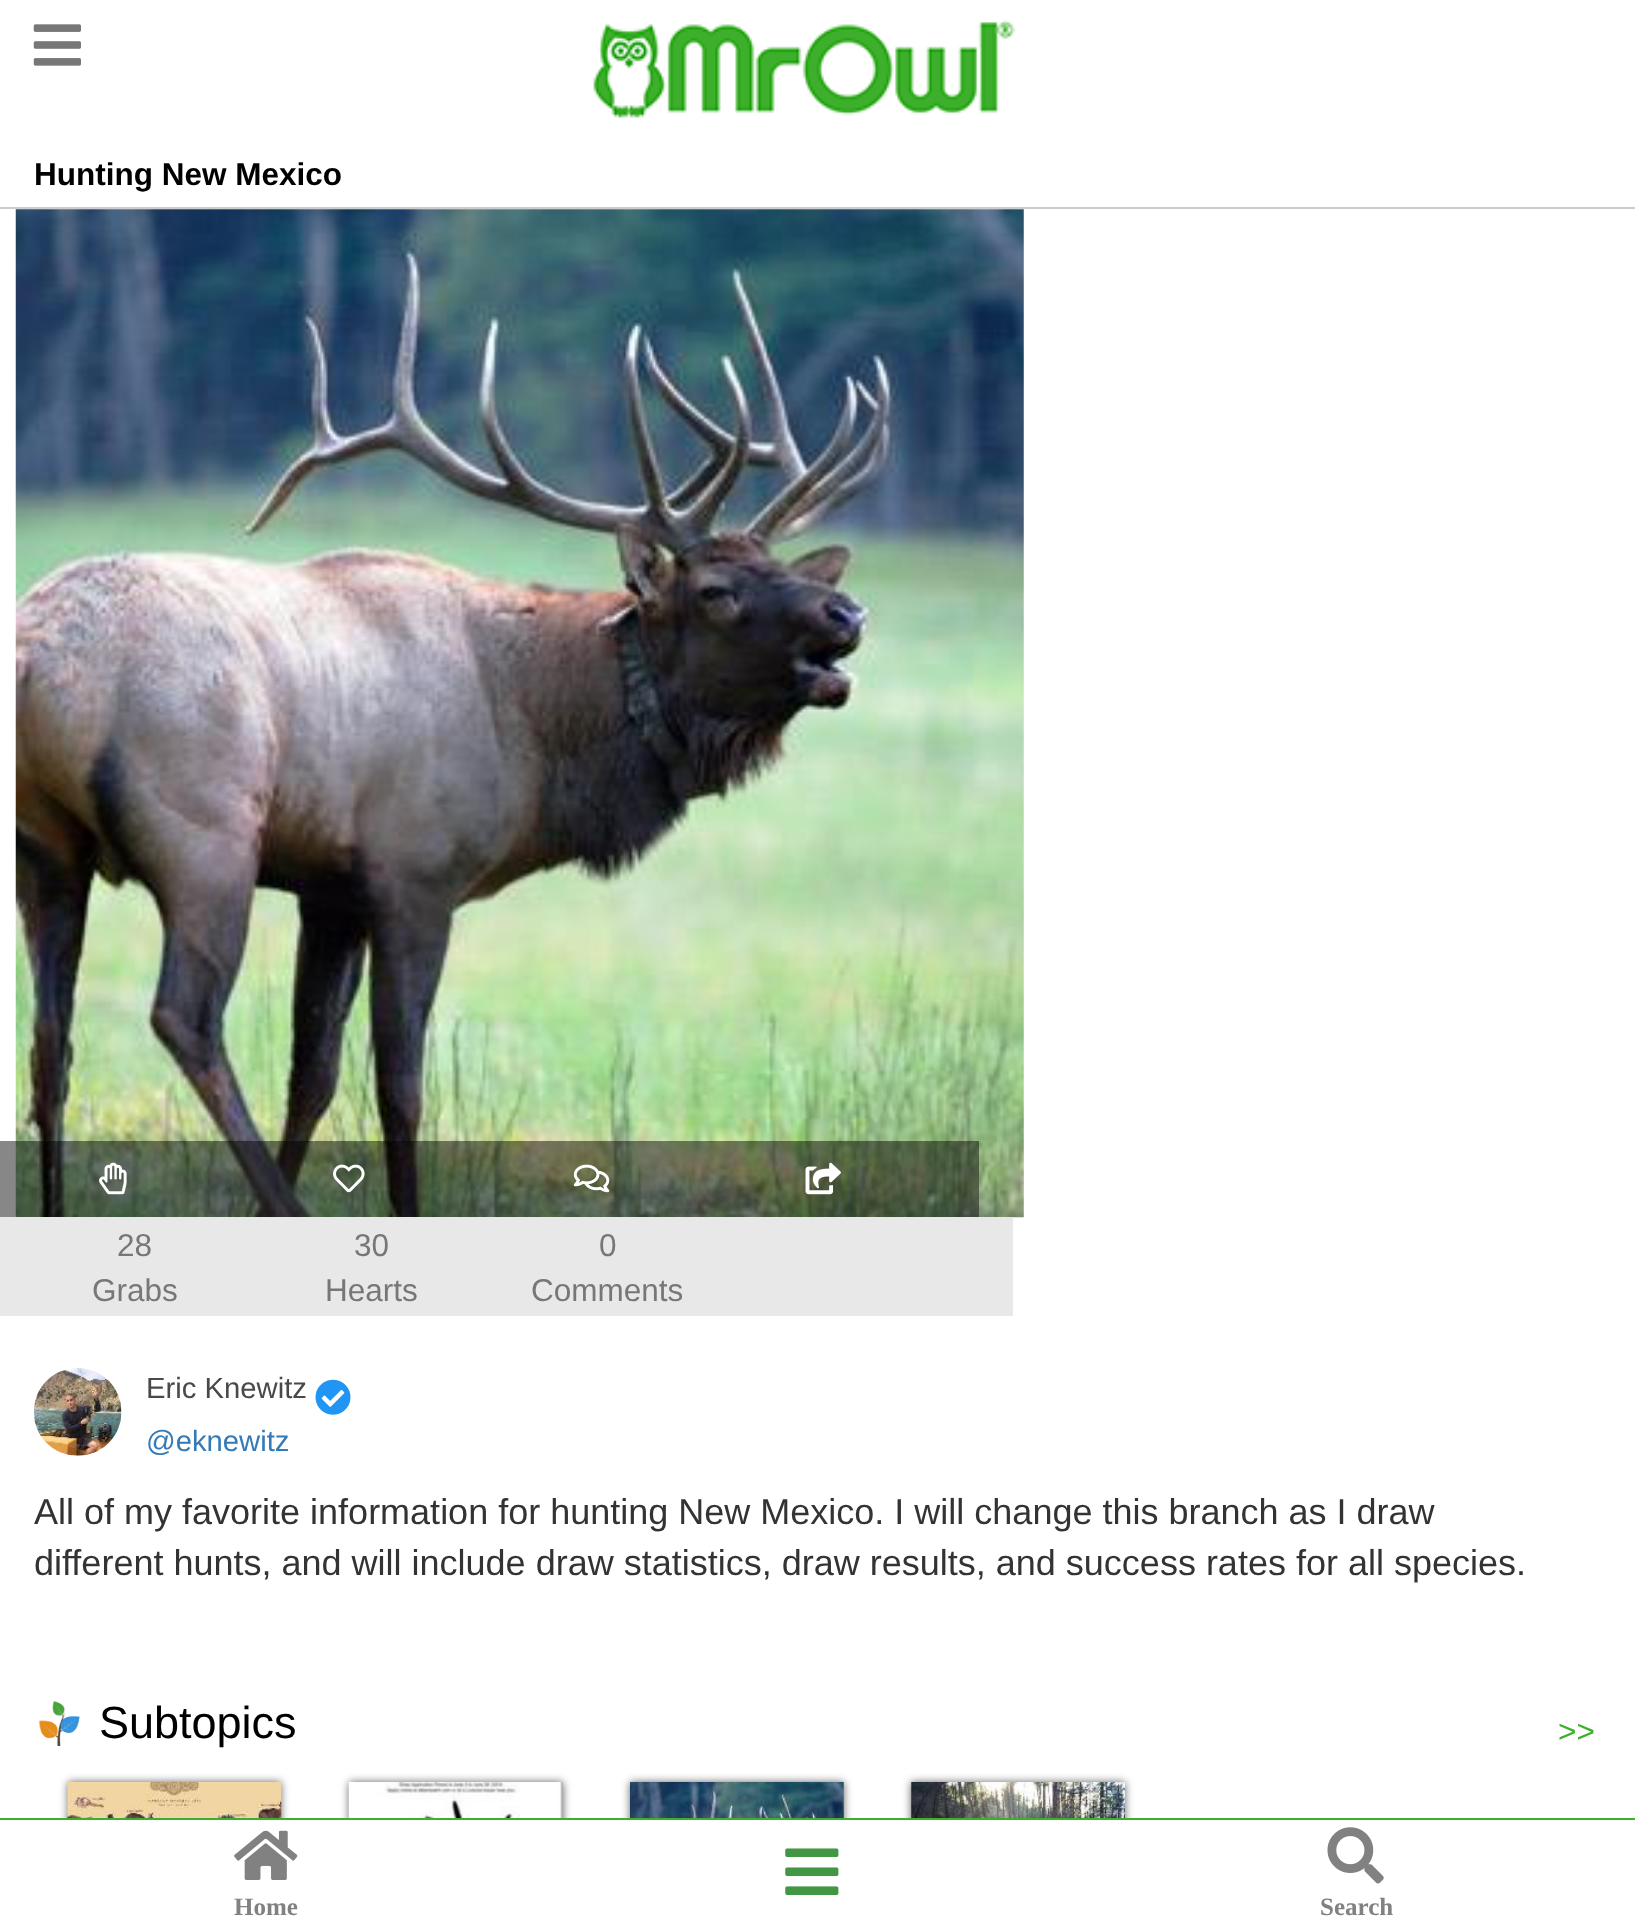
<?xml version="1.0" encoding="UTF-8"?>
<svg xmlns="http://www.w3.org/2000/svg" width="1635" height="1929">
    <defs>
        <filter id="blur1" x="-50%" y="-200%" width="200%" height="500%"><feGaussianBlur stdDeviation="4.5"/></filter>
    </defs>
    <rect width="100%" height="100%" fill="#FFFFFF"/>
    <image x="33" y="24" width="48" height="42" href="img_01.png"/>
    <image x="593" y="20" width="423" height="99" href="img_02.png"/>
    <rect x="0" y="207" width="1635" height="2" fill="#CCCCCC"/>
    <text x="34" y="185" font-family="Liberation Sans" font-size="31.5" font-weight="700" fill="#000000">Hunting New Mexico</text>
    <image x="15" y="209" width="1009" height="1009" href="img_03.png"/>
    <rect x="0" y="1141" width="979" height="76" fill="#000000" fill-opacity="0.47"/>
    <image x="99" y="1162" width="28" height="33" href="img_04.png"/>
    <image x="333" y="1164" width="32" height="29" href="img_05.png"/>
    <image x="573" y="1164" width="37" height="29" href="img_06.png"/>
    <image x="805" y="1162" width="36" height="33" href="img_07.png"/>
    <rect x="0" y="1217" width="1013" height="99" fill="#E8E8E8"/>
    <text x="117" y="1256" font-family="Liberation Sans" font-size="31.5" fill="#777777">28</text>
    <text x="92" y="1301" font-family="Liberation Sans" font-size="31.5" fill="#777777">Grabs</text>
    <text x="354" y="1256" font-family="Liberation Sans" font-size="31.5" fill="#777777">30</text>
    <text x="325" y="1301" font-family="Liberation Sans" font-size="31.5" fill="#777777">Hearts</text>
    <text x="599" y="1256" font-family="Liberation Sans" font-size="31.5" fill="#777777">0</text>
    <text x="531" y="1301" font-family="Liberation Sans" font-size="31.5" fill="#777777">Comments</text>
    <image x="34" y="1368" width="88" height="88" href="img_08.png"/>
    <text x="146" y="1398" font-family="Liberation Sans" font-size="29.25" fill="#4A4848">Eric Knewitz</text>
    <image x="315" y="1379" width="36" height="36" href="img_09.png"/>
    <text x="146" y="1451" font-family="Liberation Sans" font-size="29.25" fill="#337AB7">@eknewitz</text>
    <text font-family="Liberation Sans" font-size="36" fill="#333333">
        <tspan x="34" y="1524">All of my favorite information for hunting New Mexico. I will change this branch as I draw</tspan>
        <tspan x="34" y="1575">different hunts, and will include draw statistics, draw results, and success rates for all species.</tspan>
    </text>
    <image x="38" y="1700" width="42" height="46" href="img_10.png"/>
    <text x="99" y="1738" font-family="Liberation Sans" font-size="45" fill="#000000">Subtopics</text>
    <text x="1558" y="1742" font-family="Liberation Sans" font-size="31.5" fill="#3EAF2C">&gt;&gt;</text>
    <rect x="68" y="1782" width="213" height="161" fill="#000000" fill-opacity="0.6" filter="url(#blur1)"/>
    <image x="67" y="1782" width="215" height="36" href="img_11.png"/>
    <rect x="349" y="1782" width="214" height="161" fill="#000000" fill-opacity="0.6" filter="url(#blur1)"/>
    <image x="348" y="1782" width="215" height="36" href="img_12.png"/>
    <rect x="630" y="1782" width="214" height="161" fill="#000000" fill-opacity="0.6" filter="url(#blur1)"/>
    <image x="630" y="1782" width="214" height="36" href="img_13.png"/>
    <rect x="911" y="1782" width="214" height="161" fill="#000000" fill-opacity="0.6" filter="url(#blur1)"/>
    <image x="911" y="1782" width="214" height="36" href="img_14.png"/>
    <rect x="58" y="1820" width="1077" height="109" fill="#FFFFFF"/>
    <rect x="0" y="1818" width="1635" height="2" fill="#3EAF2C"/>
    <image x="785" y="1848" width="54" height="47" href="img_15.png"/>
    <image x="234" y="1830" width="64" height="50" href="img_16.png"/>
    <text x="234" y="1915" font-family="Liberation Serif" font-size="25" font-weight="700" fill="#818181">Home</text>
    <image x="1327" y="1827" width="57" height="57" href="img_17.png"/>
    <text x="1320" y="1915" font-family="Liberation Serif" font-size="25" font-weight="700" fill="#818181">Search</text>
</svg>
